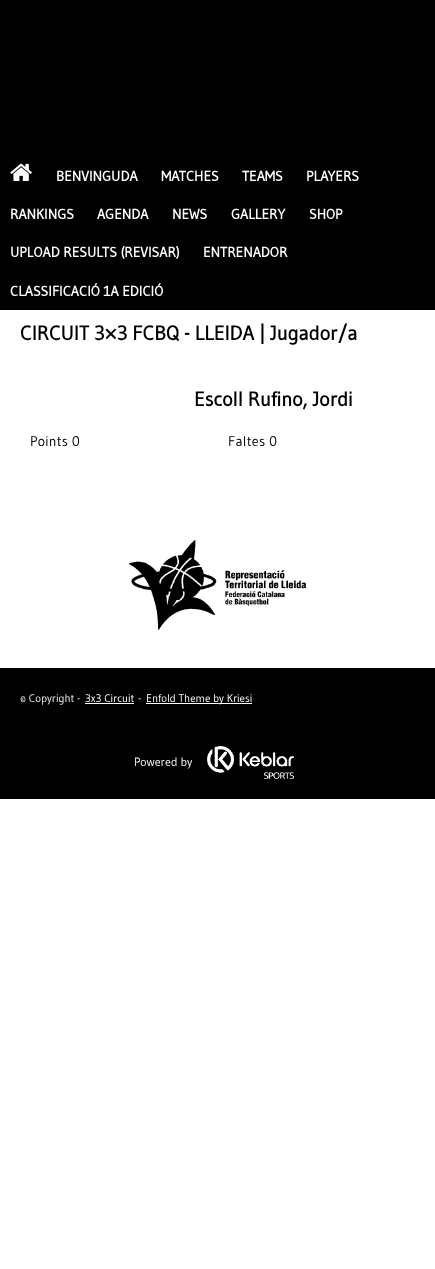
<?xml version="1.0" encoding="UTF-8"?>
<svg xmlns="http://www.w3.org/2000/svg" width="435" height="1269">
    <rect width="100%" height="100%" fill="#FFFFFF"/>
    <rect x="0" y="0" width="435" height="310" fill="#000000"/>
    <image x="10" y="163" width="22" height="18" href="img_01.png"/>
    <text x="56" y="181" font-family="Gudea" font-size="14" font-weight="700" fill="#FFFFFF">BENVINGUDA</text>
    <text x="161" y="181" font-family="Gudea" font-size="14" font-weight="700" fill="#FFFFFF">MATCHES</text>
    <text x="242" y="181" font-family="Gudea" font-size="14" font-weight="700" fill="#FFFFFF">TEAMS</text>
    <text x="306" y="181" font-family="Gudea" font-size="14" font-weight="700" fill="#FFFFFF">PLAYERS</text>
    <text x="10" y="219" font-family="Gudea" font-size="14" font-weight="700" fill="#FFFFFF">RANKINGS</text>
    <text x="97" y="219" font-family="Gudea" font-size="14" font-weight="700" fill="#FFFFFF">AGENDA</text>
    <text x="172" y="219" font-family="Gudea" font-size="14" font-weight="700" fill="#FFFFFF">NEWS</text>
    <text x="231" y="219" font-family="Gudea" font-size="14" font-weight="700" fill="#FFFFFF">GALLERY</text>
    <text x="309" y="219" font-family="Gudea" font-size="14" font-weight="700" fill="#FFFFFF">SHOP</text>
    <text x="10" y="257" font-family="Gudea" font-size="14" font-weight="700" fill="#FFFFFF">UPLOAD RESULTS (REVISAR)</text>
    <text x="203" y="257" font-family="Gudea" font-size="14" font-weight="700" fill="#FFFFFF">ENTRENADOR</text>
    <text x="10" y="296" font-family="Gudea" font-size="14" font-weight="700" fill="#FFFFFF">CLASSIFICACIÓ 1A EDICIÓ</text>
    <text x="20" y="340" font-family="Gudea" font-size="20" font-weight="700" fill="#000000">CIRCUIT 3×3 FCBQ - LLEIDA | Jugador/a</text>
    <text x="194" y="406" font-family="Gudea" font-size="20" font-weight="700" fill="#000000">Escoll Rufino, Jordi</text>
    <text x="30" y="446" font-family="Gudea" font-size="14" letter-spacing="0.25" fill="#000000">Points 0</text>
    <text x="228" y="446" font-family="Gudea" font-size="14" letter-spacing="0.25" fill="#000000">Faltes 0</text>
    <image x="129" y="540" width="177" height="90" href="img_02.png"/>
    <rect x="0" y="668" width="435" height="131" fill="#000000"/>
    <text x="20" y="702" font-family="Gudea" font-size="11" fill="#EEEEEE">© Copyright -</text>
    <text x="85" y="702" font-family="Gudea" font-size="11" fill="#FFFFFF">3x3 Circuit</text>
    <rect x="85" y="703" width="49" height="1" fill="#FFFFFF"/>
    <text x="138" y="702" font-family="Gudea" font-size="11" fill="#EEEEEE">-</text>
    <rect x="146" y="703" width="106" height="1" fill="#FFFFFF"/>
    <text x="146" y="702" font-family="Gudea" font-size="11" fill="#FFFFFF">Enfold Theme by Kriesi</text>
    <text x="134" y="766" font-family="Gudea" font-size="12" fill="#F7F7F7">Powered by</text>
    <image x="207" y="746" width="87" height="33" href="img_03.png"/>
</svg>
